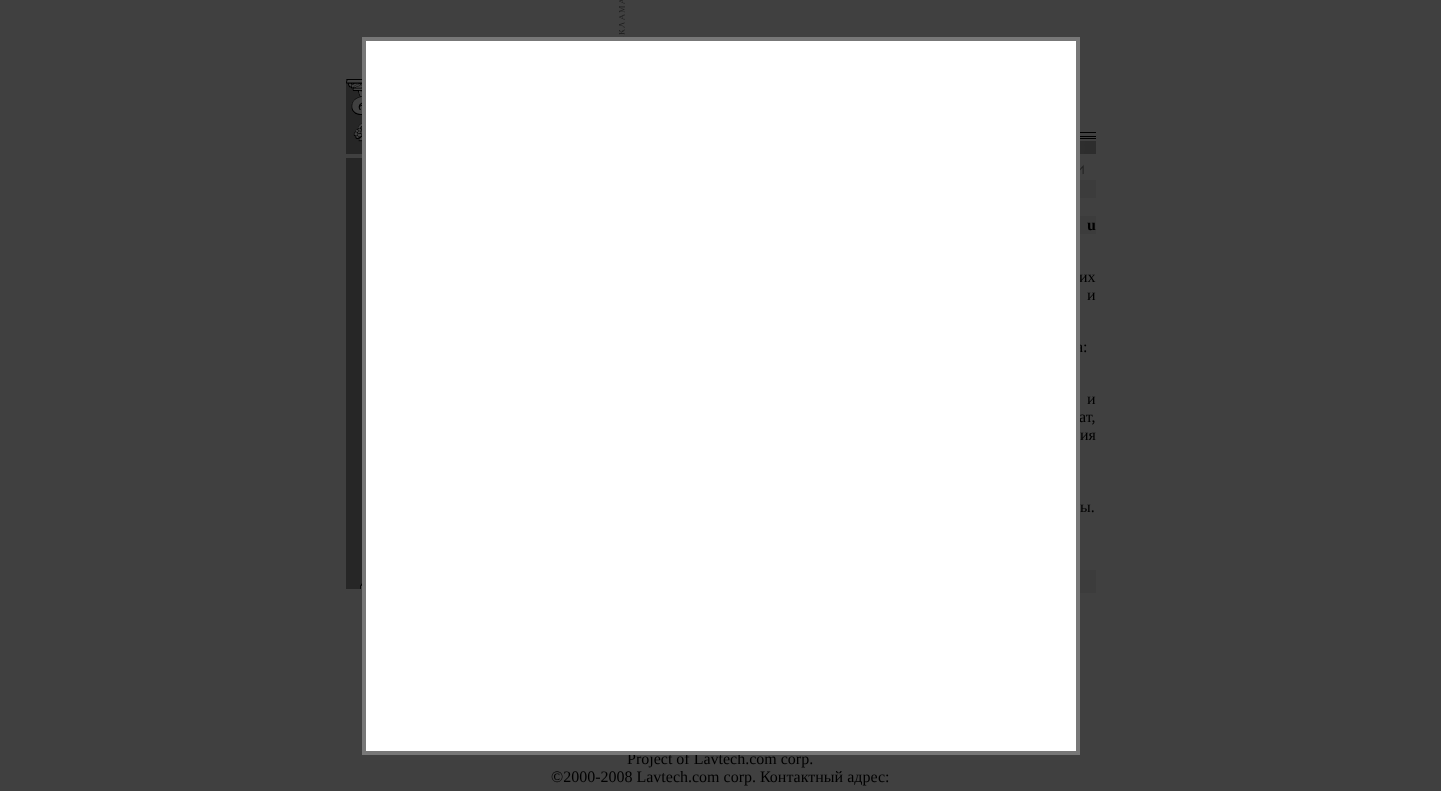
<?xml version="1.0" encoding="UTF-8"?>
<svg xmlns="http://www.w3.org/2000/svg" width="1441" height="791">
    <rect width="100%" height="100%" fill="#404040"/>
    <image x="346" y="75" width="750" height="79" href="img_02.png"/>
    <text x="1079" y="282" word-spacing="5" font-family="Liberation Serif" font-size="16" fill="#000000">их</text>
    <text x="1076" y="352" font-family="Liberation Serif" font-size="16" fill="#000000">а:</text>
    <text x="1079" y="422" font-family="Liberation Serif" font-size="16" fill="#000000">ат,</text>
    <text x="1080" y="440" word-spacing="1" font-family="Liberation Serif" font-size="16" fill="#000000">ия</text>
    <text x="1080" y="512" font-family="Liberation Serif" font-size="16" fill="#000000">ы.</text>
    <text x="627" y="764" font-family="Liberation Serif" font-size="16" fill="#000000">Рroject of Lavtech.com corp.</text>
    <rect x="364" y="39" width="714" height="714" fill="#FFFFFF" stroke="#777777" stroke-width="4"/>
    <image x="619" y="0" width="6" height="37" href="img_01.png"/>
    <rect x="346" y="158" width="16" height="412" fill="#262626"/>
    <image x="1080" y="164" width="4" height="11" href="img_03.png"/>
    <rect x="1080" y="180" width="16" height="18" fill="#3C3C3C"/>
    <rect x="1080" y="216" width="16" height="18" fill="#3C3C3C"/>
    <text x="1087" y="230" font-family="Liberation Serif" font-size="16" font-weight="700" fill="#000000">u</text>
    <text x="1087" y="300" word-spacing="1" font-family="Liberation Serif" font-size="16" fill="#000000">и</text>
    <text x="1087" y="404" word-spacing="10" font-family="Liberation Serif" font-size="16" fill="#000000">и</text>
    <image x="346" y="570" width="16" height="19" href="img_04.png"/>
    <rect x="1080" y="570" width="16" height="23" fill="#3C3C3C"/>
    <text x="551" y="782" font-family="Liberation Serif" font-size="16" fill="#000000">©2000-2008 Lavtech.com corp. Контактный адрес:</text>
</svg>
